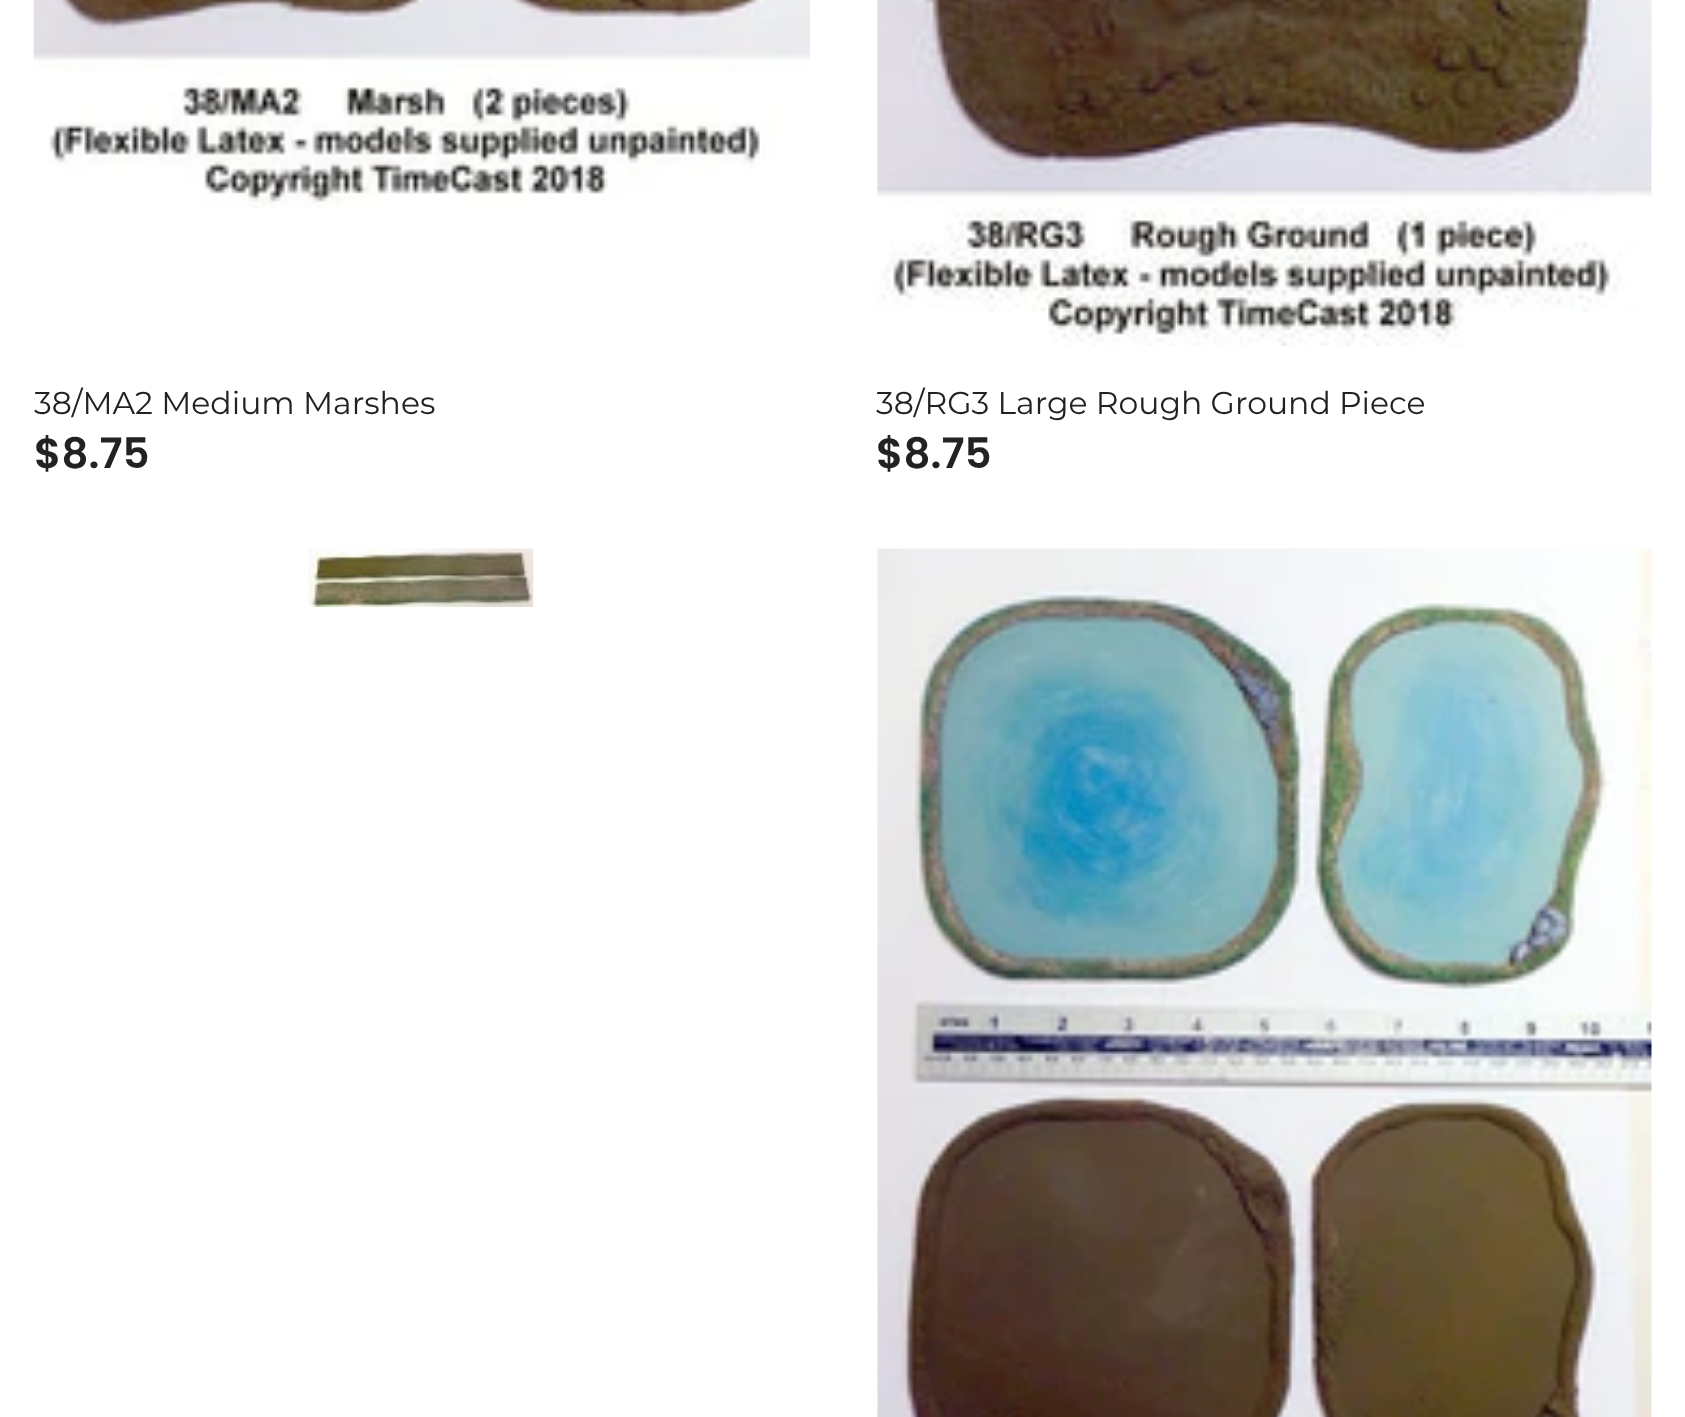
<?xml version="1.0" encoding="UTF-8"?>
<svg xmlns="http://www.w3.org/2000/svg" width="1685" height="1417">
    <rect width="100%" height="100%" fill="#FFFFFF"/>
    <image x="33" y="0" width="777" height="209" href="img_01.png"/>
    <text x="34" y="414" font-family="Montserrat" font-size="31.5" fill="#222222">38/MA2 Medium Marshes</text>
    <text x="34" y="468" font-family="Poppins" font-size="42" font-weight="600" fill="#222222">$8.75</text>
    <image x="877" y="0" width="775" height="346" href="img_02.png"/>
    <text x="876" y="414" font-family="Montserrat" font-size="31.5" fill="#222222">38/RG3 Large Rough Ground Piece</text>
    <text x="876" y="468" font-family="Poppins" font-size="42" font-weight="600" fill="#222222">$8.75</text>
    <image x="308" y="548" width="226" height="59" href="img_03.png"/>
    <image x="877" y="548" width="775" height="869" href="img_04.png"/>
</svg>
